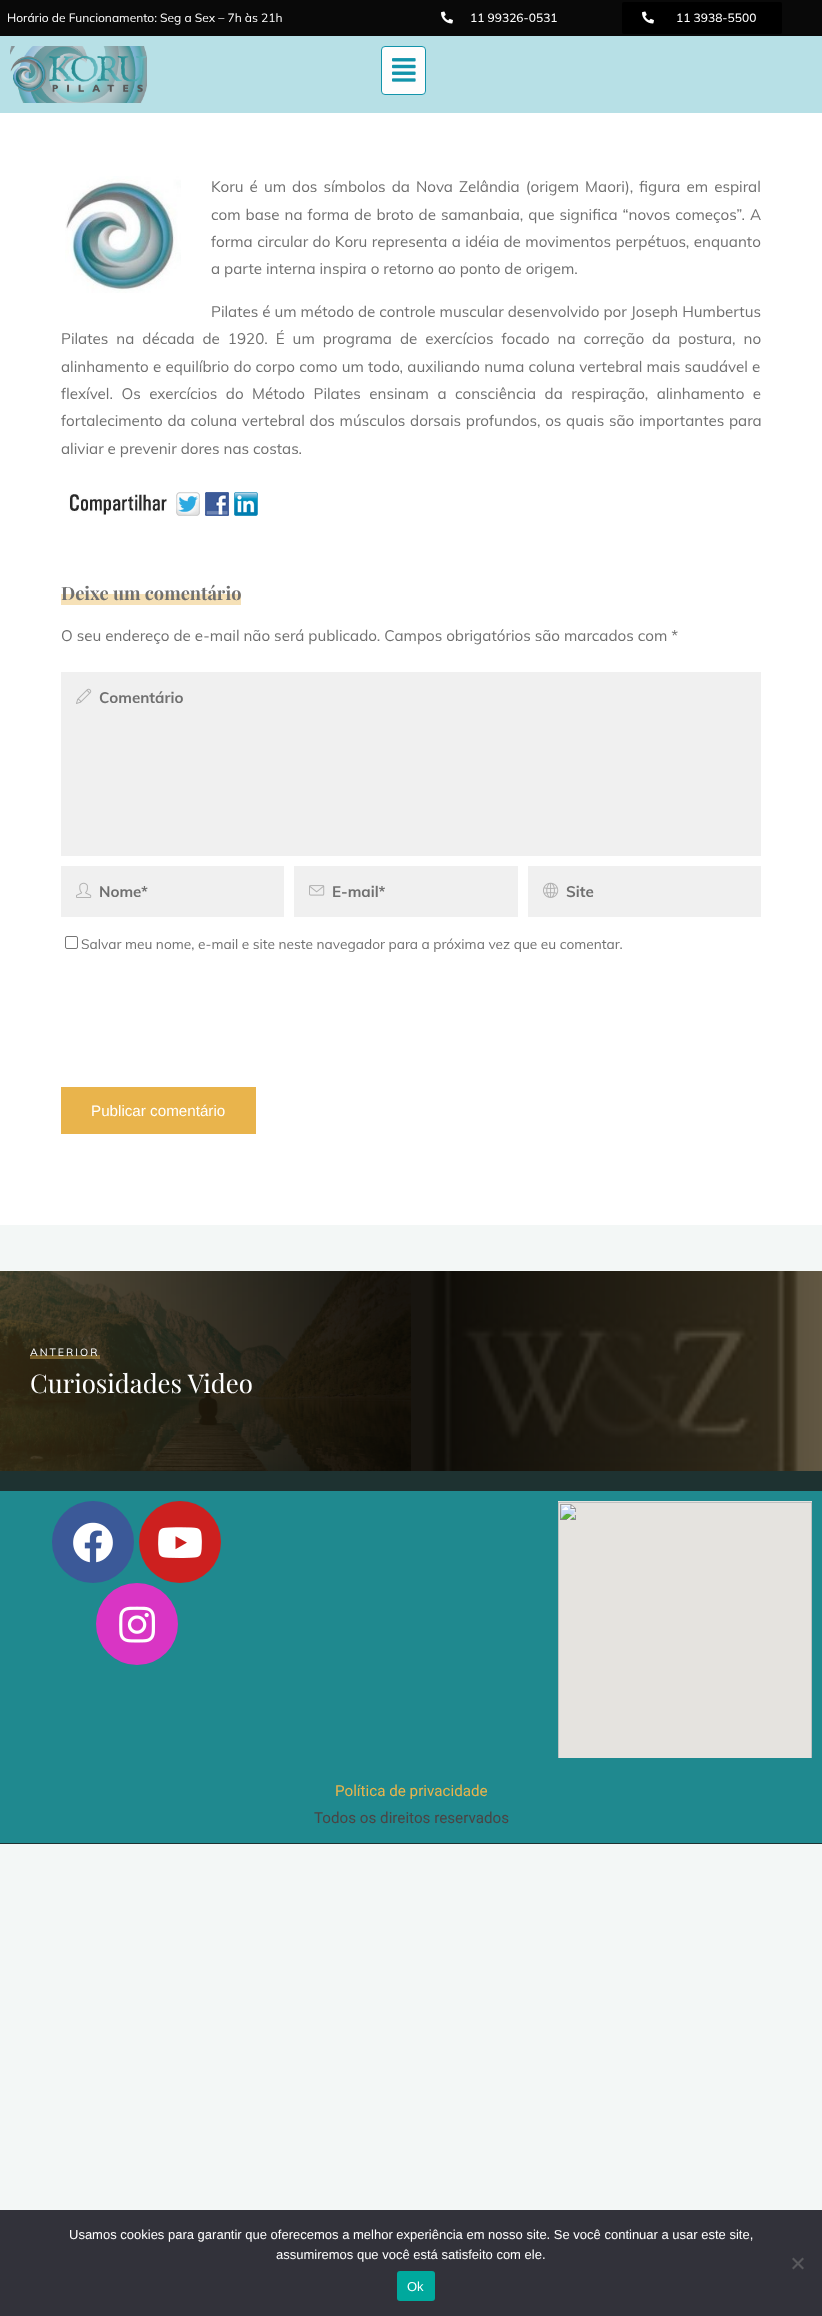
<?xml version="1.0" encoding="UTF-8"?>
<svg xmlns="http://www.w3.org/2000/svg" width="822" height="2316">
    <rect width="100%" height="100%" fill="#F3F7F6"/>
    <rect x="0" y="0" width="822" height="36" fill="#090909"/>
    <text x="7" y="22" font-family="Mulish" font-size="12" fill="#FFFFFF">Horário de Funcionamento: Seg a Sex – 7h às 21h</text>
    <image x="441" y="11" width="12" height="13" href="img_01.png"/>
    <text x="470" y="22" font-family="Mulish" font-size="12" font-weight="500" fill="#FFFFFF">11 99326-0531</text>
    <rect x="622" y="2" width="160" height="32" rx="2" fill="#000000"/>
    <image x="642" y="11" width="12" height="13" href="img_02.png"/>
    <text x="676" y="22" font-family="Mulish" font-size="12" font-weight="500" fill="#FFFFFF">11 3938-5500</text>
    <rect x="0" y="36" width="822" height="77" fill="#B7E0E6"/>
    <image x="10" y="46" width="137" height="57" href="img_03.png"/>
    <rect x="381.5" y="46.5" width="44" height="48" rx="3.5" fill="#FFFDFD" stroke="#1394AB"/>
    <image x="392" y="58" width="24" height="24" href="img_04.png"/>
    <rect x="0" y="113" width="822" height="1112" fill="#FFFFFF"/>
    <image x="65" y="176" width="116" height="117" href="img_05.png"/>
    <text font-family="Muli" font-size="15.2" fill="#707070">
        <tspan x="211" y="192" word-spacing="2.1">Koru é um dos símbolos da Nova Zelândia (origem Maori), figura em espiral</tspan>
        <tspan x="211" y="220" word-spacing="1">com base na forma de broto de samanbaia, que significa “novos começos”. A</tspan>
        <tspan x="211" y="247" word-spacing="0.5">forma circular do Koru representa a idéia de movimentos perpétuos, enquanto</tspan>
        <tspan x="211" y="274">a parte interna inspira o retorno ao ponto de origem.</tspan>
    </text>
    <text x="211" y="317" font-family="Muli" font-size="15.2" fill="#707070">Pilates é um método de controle muscular desenvolvido por Joseph Humbertus</text>
    <text font-family="Muli" font-size="15.2" fill="#707070">
        <tspan x="61" y="344" word-spacing="4">Pilates na década de 1920. É um programa de exercícios focado na correção da postura, no</tspan>
        <tspan x="61" y="372" word-spacing="0.25">alinhamento e equilíbrio do corpo como um todo, auxiliando numa coluna vertebral mais saudável e</tspan>
        <tspan x="61" y="399" word-spacing="4.5">flexível. Os exercícios do Método Pilates ensinam a consciência da respiração, alinhamento e</tspan>
        <tspan x="61" y="426" word-spacing="0.75">fortalecimento da coluna vertebral dos músculos dorsais profundos, os quais são importantes para</tspan>
        <tspan x="61" y="454">aliviar e prevenir dores nas costas.</tspan>
    </text>
    <image x="69" y="494" width="98" height="21" href="img_06.png"/>
    <image x="176" y="492" width="24" height="24" href="img_07.png"/>
    <image x="205" y="492" width="24" height="24" href="img_08.png"/>
    <image x="234" y="492" width="24" height="24" href="img_09.png"/>
    <rect x="61" y="594" width="180" height="11" fill="#F6E1B7"/>
    <text x="61" y="600" font-family="Playfair Display" font-size="18.25" font-weight="700" fill="#707070">Deixe um comentário</text>
    <text x="61" y="641" font-family="Muli" font-size="15.2" fill="#707070">O seu endereço de e-mail não será publicado. Campos obrigatórios são marcados com *</text>
    <rect x="61" y="672" width="700" height="184" fill="#F0F0F0"/>
    <image x="76" y="688" width="16" height="16" href="img_10.png"/>
    <text x="99" y="703" font-family="Muli" font-size="15.2" font-weight="700" fill="#707070">Comentário</text>
    <rect x="61" y="866" width="223" height="51" fill="#F0F0F0"/>
    <image x="76" y="882" width="16" height="16" href="img_11.png"/>
    <text x="99" y="897" font-family="Muli" font-size="15.2" font-weight="700" fill="#707070">Nome*</text>
    <rect x="294" y="866" width="224" height="51" fill="#F0F0F0"/>
    <image x="309" y="885" width="16" height="11" href="img_12.png"/>
    <text x="332" y="897" font-family="Muli" font-size="15.2" font-weight="700" fill="#707070">E-mail*</text>
    <rect x="528" y="866" width="233" height="51" fill="#F0F0F0"/>
    <image x="543" y="882" width="16" height="16" href="img_13.png"/>
    <text x="566" y="897" font-family="Muli" font-size="15.2" font-weight="700" fill="#707070">Site</text>
    <rect x="65.5" y="936.5" width="12" height="12" rx="1.5" fill="none" stroke="#767676"/>
    <text x="81" y="949" font-family="Muli" font-size="13.7" fill="#707070">Salvar meu nome, e-mail e site neste navegador para a próxima vez que eu comentar.</text>
    <rect x="61" y="1087" width="195" height="47" fill="#E9B44C"/>
    <text x="91" y="1116" font-family="Liberation Sans" font-size="15.2" fill="#FFFFFF">Publicar comentário</text>
    <image x="0" y="1271" width="411" height="200" href="img_14.png"/>
    <rect x="30" y="1355" width="70" height="4" fill="#E9B44C" fill-opacity="0.4"/>
    <text x="30" y="1356" font-family="Muli" font-size="10.5" letter-spacing="2" fill="#FFFFFF">ANTERIOR</text>
    <text x="30" y="1393" font-family="Playfair Display" font-size="25.75" fill="#FFFFFF">Curiosidades Video</text>
    <image x="411" y="1271" width="411" height="200" href="img_15.png"/>
    <rect x="0" y="1471" width="822" height="373" fill="#1E3231"/>
    <rect x="0" y="1491" width="822" height="352" fill="#1F898F"/>
    <circle cx="93" cy="1542" r="41" fill="#3B5998"/>
    <image x="73" y="1522" width="40" height="41" href="img_16.png"/>
    <circle cx="180" cy="1542" r="41" fill="#CD201F"/>
    <image x="158" y="1527" width="44" height="31" href="img_17.png"/>
    <circle cx="137" cy="1624" r="41" fill="#D935C4"/>
    <image x="119" y="1606" width="36" height="37" href="img_18.png"/>
    <image x="558" y="1501" width="254" height="257" href="img_19.png"/>
    <text x="335" y="1796" font-family="Roboto" font-size="15.2" fill="#E9B44C">Política de privacidade</text>
    <text x="314" y="1823" font-family="Roboto" font-size="15.2" fill="#4A4444">Todos os direitos reservados</text>
    <rect x="0" y="2210" width="822" height="106" fill="#32323A"/>
    <text x="69" y="2239" font-family="Liberation Sans" font-size="13" fill="#FFFFFF">Usamos cookies para garantir que oferecemos a melhor experiência em nosso site. Se você continuar a usar este site,</text>
    <text x="276" y="2259" font-family="Liberation Sans" font-size="13" fill="#FFFFFF">assumiremos que você está satisfeito com ele.</text>
    <path d="M 802.5 2257.5 L 804 2259 L 793.5 2269.5 L 792 2268 Z" fill="#59595D"/>
    <path d="M 792 2259 L 793.5 2257.5 L 804 2268 L 802.5 2269.5 Z" fill="#59595D"/>
    <rect x="397" y="2271" width="38" height="30" rx="3" fill="#00A99D"/>
    <text x="407" y="2291" font-family="Liberation Sans" font-size="13" fill="#FFFFFF">Ok</text>
</svg>
